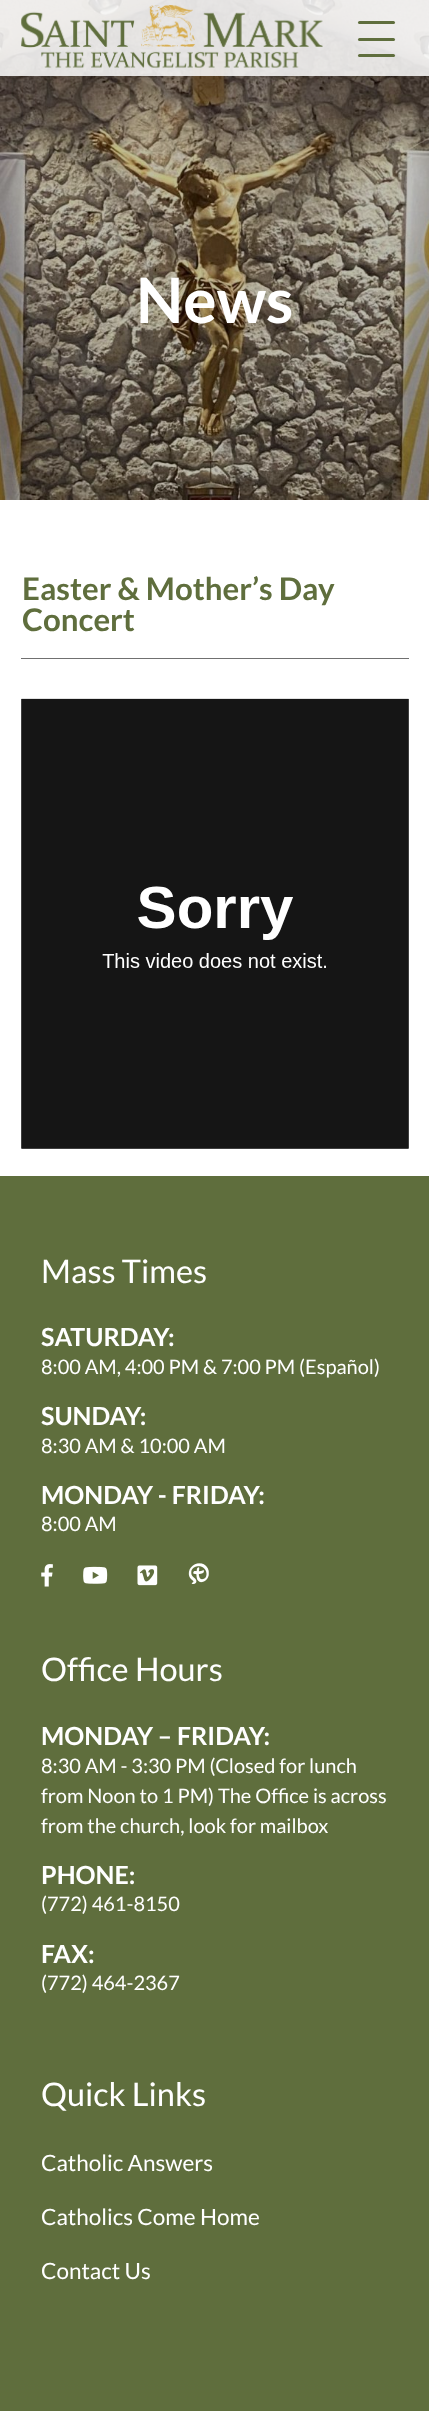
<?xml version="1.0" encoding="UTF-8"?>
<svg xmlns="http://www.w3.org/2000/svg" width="429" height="2411">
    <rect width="100%" height="100%" fill="#FFFFFF"/>
    <image x="0" y="0" width="429" height="500" href="img_02.png"/>
    <rect x="0" y="0" width="429" height="76" fill="#FFFFFF" fill-opacity="0.85"/>
    <image x="21" y="5" width="302" height="63" href="img_01.png"/>
    <rect x="358" y="21" width="37" height="3" rx="1.5" fill="#5F6E3D"/>
    <rect x="358" y="38" width="37" height="3" rx="1.5" fill="#5F6E3D"/>
    <rect x="358" y="54" width="37" height="3" rx="1.5" fill="#5F6E3D"/>
    <text x="136" y="323" font-family="Lato" font-size="62.5" font-weight="700" fill="#FFFFFF">News</text>
    <rect x="21" y="658" width="388" height="1" fill="#707070"/>
    <text font-family="Lato" font-size="31.25" font-weight="700" fill="#5F6E3D">
        <tspan x="22" y="600">Easter &amp; Mother’s Day</tspan>
        <tspan x="22" y="631">Concert</tspan>
    </text>
    <image x="21" y="698" width="388" height="451" href="img_03.png"/>
    <rect x="0" y="1176" width="429" height="1235" fill="#5F6E3D"/>
    <text x="41" y="1283" font-family="Lato" font-size="32.5" fill="#FFFFFF">Mass Times</text>
    <text x="41" y="1346" font-family="Lato" font-size="25" font-weight="700" fill="#FFFFFF">SATURDAY:</text>
    <text x="41" y="1374" font-family="Lato" font-size="20" fill="#FFFFFF">8:00 AM, 4:00 PM &amp; 7:00 PM (Español)</text>
    <text x="41" y="1425" font-family="Lato" font-size="25" font-weight="700" fill="#FFFFFF">SUNDAY:</text>
    <text x="41" y="1453" font-family="Lato" font-size="20" fill="#FFFFFF">8:30 AM &amp; 10:00 AM</text>
    <text x="41" y="1504" font-family="Lato" font-size="25" font-weight="700" fill="#FFFFFF">MONDAY - FRIDAY:</text>
    <text x="41" y="1531" font-family="Lato" font-size="20" fill="#FFFFFF">8:00 AM</text>
    <image x="41" y="1564" width="12" height="23" href="img_04.png"/>
    <image x="83" y="1566" width="25" height="18" href="img_05.png"/>
    <image x="137" y="1565" width="21" height="21" href="img_06.png"/>
    <image x="188" y="1563" width="21" height="21" href="img_07.png"/>
    <text x="41" y="1681" font-family="Lato" font-size="32.5" fill="#FFFFFF">Office Hours</text>
    <text x="41" y="1745" font-family="Lato" font-size="25" font-weight="700" fill="#FFFFFF">MONDAY – FRIDAY:</text>
    <text font-family="Lato" font-size="20" fill="#FFFFFF">
        <tspan x="41" y="1773">8:30 AM - 3:30 PM (Closed for lunch</tspan>
        <tspan x="41" y="1803">from Noon to 1 PM) The Office is across</tspan>
        <tspan x="41" y="1833">from the church, look for mailbox</tspan>
    </text>
    <text x="41" y="1884" font-family="Lato" font-size="25" font-weight="700" fill="#FFFFFF">PHONE:</text>
    <text x="41" y="1911" font-family="Lato" font-size="20" fill="#FFFFFF">(772) 461-8150</text>
    <text x="41" y="1963" font-family="Lato" font-size="25" font-weight="700" fill="#FFFFFF">FAX:</text>
    <text x="41" y="1990" font-family="Lato" font-size="20" fill="#FFFFFF">(772) 464-2367</text>
    <text x="41" y="2106" font-family="Lato" font-size="32.5" fill="#FFFFFF">Quick Links</text>
    <text x="41" y="2171" font-family="Lato" font-size="22.5" fill="#FFFFFF">Catholic Answers</text>
    <text x="41" y="2225" font-family="Lato" font-size="22.5" fill="#FFFFFF">Catholics Come Home</text>
    <text x="41" y="2279" font-family="Lato" font-size="22.5" fill="#FFFFFF">Contact Us</text>
</svg>
